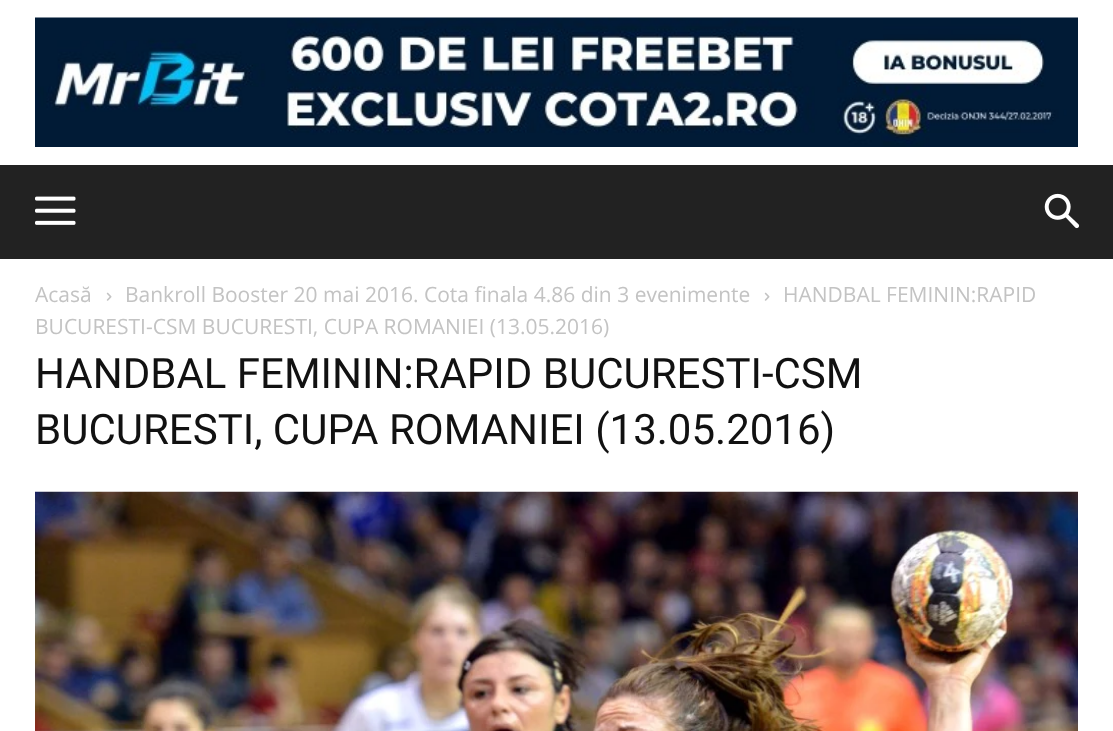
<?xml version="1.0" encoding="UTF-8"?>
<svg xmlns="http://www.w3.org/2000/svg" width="1113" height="731">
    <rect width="100%" height="100%" fill="#FFFFFF"/>
    <image x="35" y="17" width="1043" height="130" href="img_01.png"/>
    <rect x="0" y="165" width="1113" height="94" fill="#222222"/>
    <image x="35" y="196" width="41" height="29" href="img_02.png"/>
    <image x="1044" y="193" width="36" height="36" href="img_03.png"/>
    <text x="35" y="302" font-family="Open Sans" font-size="21" fill="#C3C3C3">Acasă</text>
    <image x="106" y="292" width="6" height="9" href="img_04.png"/>
    <text x="125" y="302" font-family="Open Sans" font-size="21" fill="#C3C3C3">Bankroll Booster 20 mai 2016. Cota finala 4.86 din 3 evenimente</text>
    <image x="764" y="292" width="6" height="9" href="img_04.png"/>
    <text x="783" y="302" font-family="Open Sans" font-size="21" fill="#C3C3C3">HANDBAL FEMININ:RAPID</text>
    <text x="35" y="334" font-family="Open Sans" font-size="21" fill="#C3C3C3">BUCURESTI-CSM BUCURESTI, CUPA ROMANIEI (13.05.2016)</text>
    <text font-family="Roboto" font-size="42" fill="#111111">
        <tspan x="35" y="388">HANDBAL FEMININ:RAPID BUCURESTI-CSM</tspan>
        <tspan x="35" y="444">BUCURESTI, CUPA ROMANIEI (13.05.2016)</tspan>
    </text>
    <image x="35" y="491" width="1043" height="240" href="img_05.png"/>
</svg>
